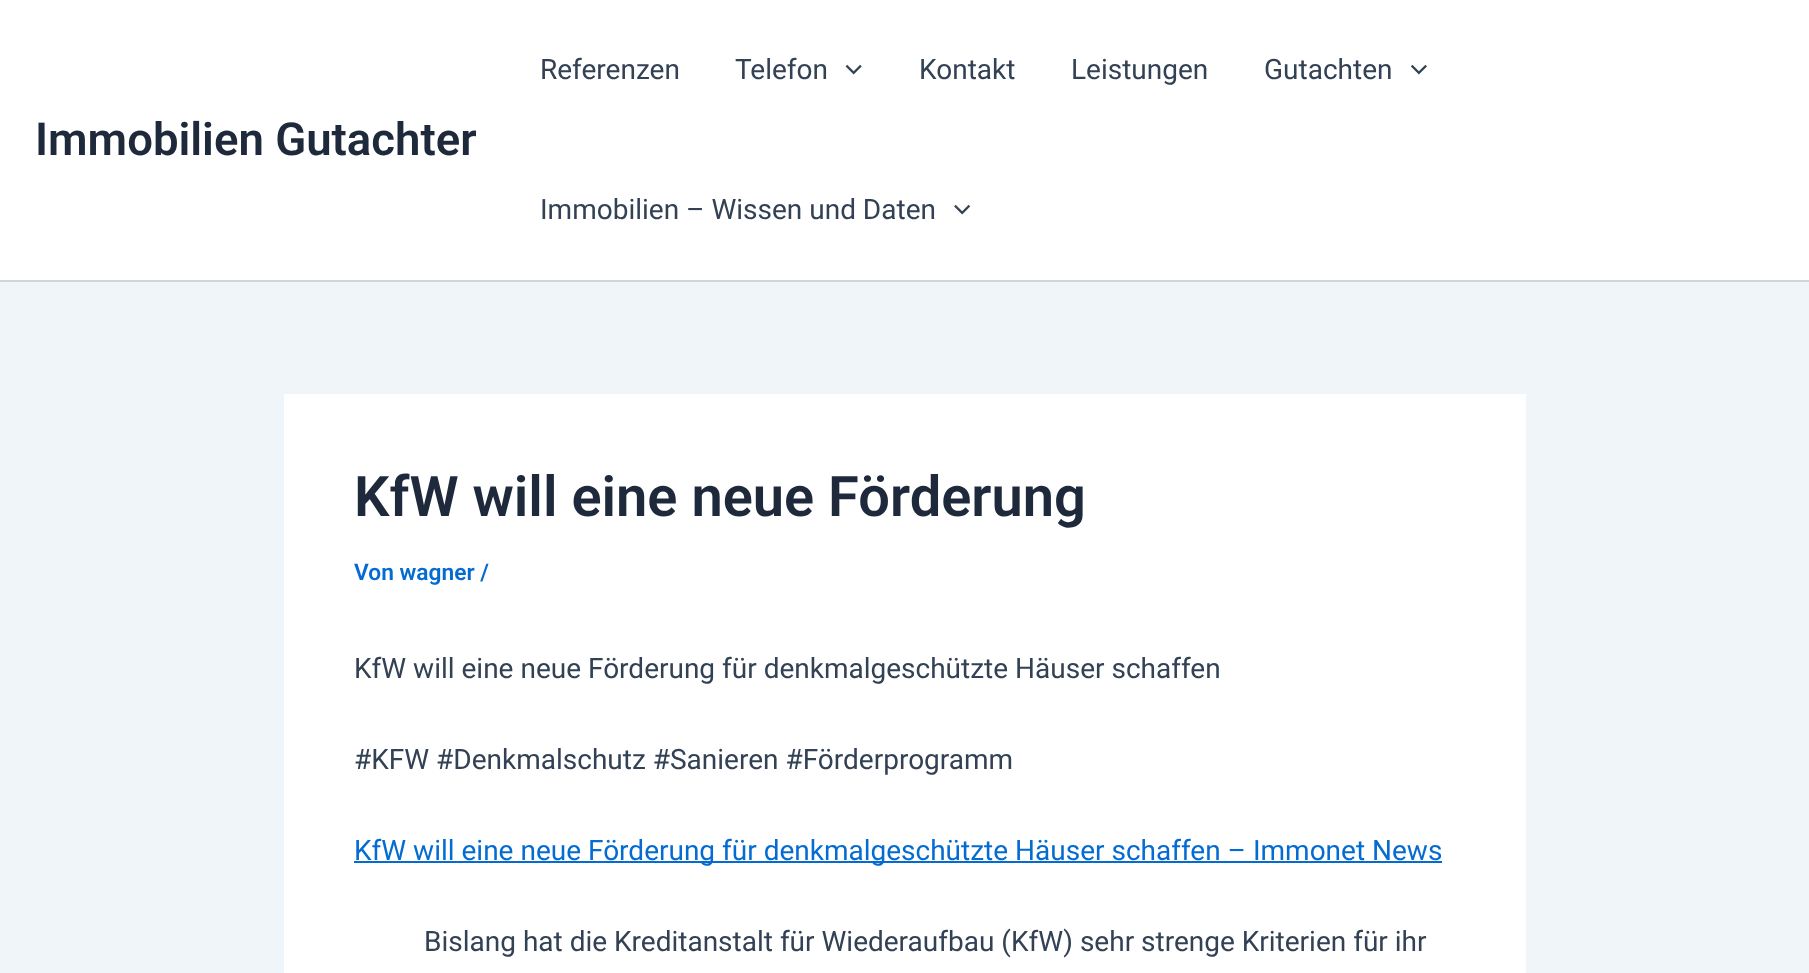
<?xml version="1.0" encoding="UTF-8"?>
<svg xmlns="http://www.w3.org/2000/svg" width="1809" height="973">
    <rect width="100%" height="100%" fill="#F0F5FA"/>
    <rect x="0" y="0" width="1809" height="280" fill="#FFFFFF"/>
    <rect x="0" y="280" width="1809" height="2" fill="#D1D5DB"/>
    <text x="35" y="155" font-family="Roboto" font-size="45.5" font-weight="600" fill="#1E293B">Immobilien Gutachter</text>
    <text x="540" y="79" font-family="Roboto" font-size="28" fill="#334155">Referenzen</text>
    <text x="735" y="79" font-family="Roboto" font-size="28" fill="#334155">Telefon</text>
    <image x="845" y="64" width="17" height="11" href="img_01.png"/>
    <text x="919" y="79" font-family="Roboto" font-size="28" fill="#334155">Kontakt</text>
    <text x="1071" y="79" font-family="Roboto" font-size="28" fill="#334155">Leistungen</text>
    <text x="1264" y="79" font-family="Roboto" font-size="28" fill="#334155">Gutachten</text>
    <image x="1411" y="64" width="16" height="11" href="img_02.png"/>
    <text x="540" y="219" font-family="Roboto" font-size="28" fill="#334155">Immobilien – Wissen und Daten</text>
    <image x="954" y="204" width="16" height="11" href="img_03.png"/>
    <rect x="284" y="394" width="1242" height="579" fill="#FFFFFF"/>
    <text x="354" y="516" font-family="Roboto" font-size="56" font-weight="600" fill="#1E293B">KfW will eine neue Förderung</text>
    <text x="354" y="580" font-family="Roboto" font-size="22.75" font-weight="600" fill="#046BD2">Von wagner /</text>
    <text x="354" y="678" font-family="Roboto" font-size="28" fill="#334155">KfW will eine neue Förderung für denkmalgeschützte Häuser schaffen</text>
    <text x="354" y="769" font-family="Roboto" font-size="28" fill="#334155">#KFW #Denkmalschutz #Sanieren #Förderprogramm</text>
    <rect x="354" y="861" width="1088" height="2" fill="#046BD2"/>
    <text x="354" y="860" font-family="Roboto" font-size="28" fill="#046BD2">KfW will eine neue Förderung für denkmalgeschützte Häuser schaffen – Immonet News</text>
    <text x="424" y="951" font-family="Roboto" font-size="28" fill="#334155">Bislang hat die Kreditanstalt für Wiederaufbau (KfW) sehr strenge Kriterien für ihr</text>
</svg>
